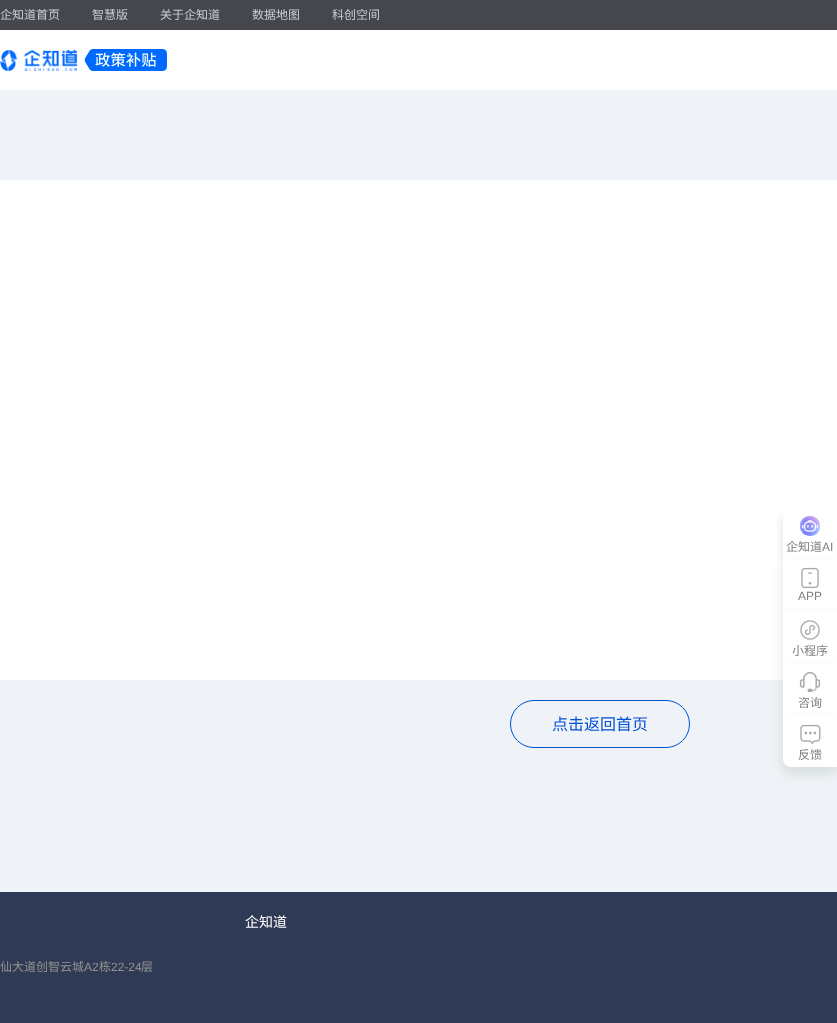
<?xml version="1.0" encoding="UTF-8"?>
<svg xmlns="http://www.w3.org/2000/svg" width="837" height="1023">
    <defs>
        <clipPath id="clip1"><rect x="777" y="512" width="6" height="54"/></clipPath>
        <filter id="blur1" x="-50%" y="-200%" width="200%" height="500%"><feGaussianBlur stdDeviation="6"/></filter>
    </defs>
    <rect width="100%" height="100%" fill="#2F3A54"/>
    <rect x="0" y="0" width="837" height="30" fill="#45474C"/>
    <text x="0" y="19" font-family="Noto Sans CJK SC" font-size="12" fill="#C8CDD4">企知道首页</text>
    <text x="92" y="19" font-family="Noto Sans CJK SC" font-size="12" fill="#C8CDD4">智慧版</text>
    <text x="160" y="19" font-family="Noto Sans CJK SC" font-size="12" fill="#C8CDD4">关于企知道</text>
    <text x="252" y="19" font-family="Noto Sans CJK SC" font-size="12" fill="#C8CDD4">数据地图</text>
    <text x="332" y="19" font-family="Noto Sans CJK SC" font-size="12" fill="#C8CDD4">科创空间</text>
    <rect x="0" y="30" width="837" height="60" fill="#FFFFFF"/>
    <image x="0" y="50" width="78" height="21" href="img_01.png"/>
    <image x="84" y="49" width="83" height="22" href="img_02.png"/>
    <rect x="0" y="90" width="837" height="802" fill="#EFF2F6"/>
    <rect x="0" y="180" width="837" height="500" fill="#FFFFFF"/>
    <rect x="510.5" y="700.5" width="179" height="47" rx="23.5" fill="none" stroke="#0051D8"/>
    <text x="552" y="730" font-family="Noto Sans CJK SC" font-size="16" fill="#0051D8">点击返回首页</text>
    <g clip-path="url(#clip1)">
        <rect x="783" y="513" width="54" height="52" rx="8" fill="#24272F" fill-opacity="0.12" filter="url(#blur1)"/>
    </g>
    <image x="800" y="516" width="20" height="20" href="img_03.png"/>
    <text x="786" y="551" font-family="Noto Sans CJK SC" font-size="12" fill="#7E7F81">企知道</text>
    <text x="822" y="551" font-family="Liberation Sans" font-size="12" fill="#7E7F81">AI</text>
    <rect x="783" y="565" width="54" height="52" fill="#24272F" fill-opacity="0.12" filter="url(#blur1)"/>
    <rect x="783" y="559" width="54" height="52" fill="#FFFFFF"/>
    <image x="801" y="567" width="18" height="22" href="img_04.png"/>
    <text x="798" y="600" font-family="Liberation Sans" font-size="12" fill="#7E7F81">APP</text>
    <rect x="783" y="617" width="54" height="52" fill="#24272F" fill-opacity="0.12" filter="url(#blur1)"/>
    <rect x="783" y="611" width="54" height="52" fill="#FFFFFF"/>
    <image x="800" y="620" width="20" height="20" href="img_05.png"/>
    <text x="792" y="655" font-family="Noto Sans CJK SC" font-size="12" fill="#7E7F81">小程序</text>
    <rect x="783" y="669" width="54" height="52" fill="#24272F" fill-opacity="0.12" filter="url(#blur1)"/>
    <rect x="783" y="663" width="54" height="52" fill="#FFFFFF"/>
    <image x="799" y="672" width="22" height="20" href="img_06.png"/>
    <text x="798" y="707" font-family="Noto Sans CJK SC" font-size="12" fill="#7E7F81">咨询</text>
    <rect x="783" y="721" width="54" height="52" rx="8" fill="#24272F" fill-opacity="0.12" filter="url(#blur1)"/>
    <path d="M 783 715 H 837 V 767 H 791 C 786.5 767 783 763.5 783 759 Z" fill="#FFFFFF"/>
    <image x="800" y="724" width="21" height="21" href="img_07.png"/>
    <text x="798" y="759" font-family="Noto Sans CJK SC" font-size="12" fill="#7E7F81">反馈</text>
    <text x="245" y="927" font-family="Noto Sans CJK SC" font-size="14" fill="#FFFFFF">企知道</text>
    <text x="0" y="971" font-family="Noto Sans CJK SC" font-size="12" fill="#939393">仙大道创智云城</text>
    <text x="84" y="971" font-family="Liberation Sans" font-size="12" fill="#939393">A2</text>
    <text x="99" y="971" font-family="Noto Sans CJK SC" font-size="12" fill="#939393">栋</text>
    <text x="111" y="971" font-family="Liberation Sans" font-size="12" fill="#939393">22-24</text>
    <text x="141" y="971" font-family="Noto Sans CJK SC" font-size="12" fill="#939393">层</text>
</svg>
